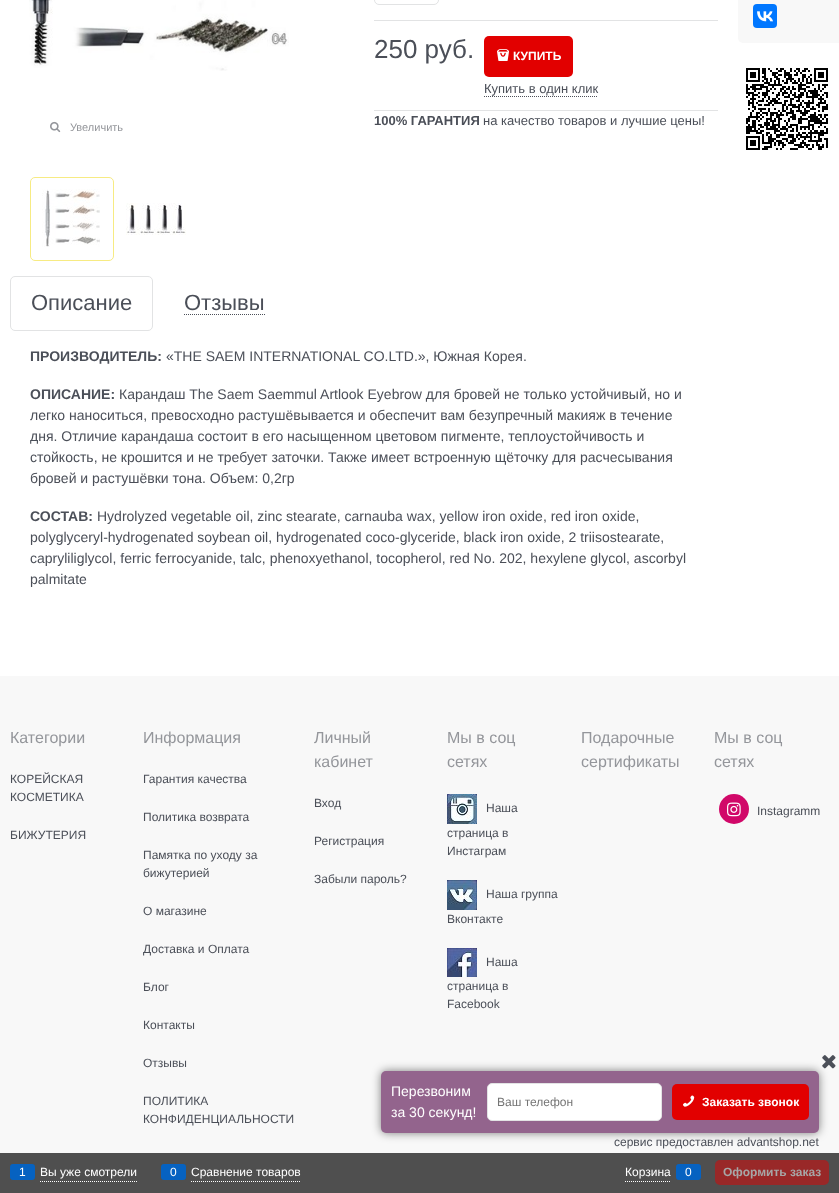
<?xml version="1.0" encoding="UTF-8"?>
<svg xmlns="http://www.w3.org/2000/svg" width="839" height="1193">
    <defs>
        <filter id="blur1" x="-50%" y="-200%" width="200%" height="500%"><feGaussianBlur stdDeviation="5"/></filter>
    </defs>
    <rect width="100%" height="100%" fill="#FFFFFF"/>
    <image x="29" y="0" width="260" height="71" href="img_01.png"/>
    <image x="50" y="121" width="11" height="12" href="img_02.png"/>
    <text x="70" y="131" font-family="Liberation Sans" font-size="11" fill="#94969B">Увеличить</text>
    <rect x="30.5" y="177.5" width="83" height="83" rx="4.5" fill="none" stroke="#F7EB83"/>
    <image x="42" y="189" width="58" height="58" href="img_03.png"/>
    <image x="126" y="203" width="60" height="32" href="img_04.png"/>
    <rect x="374.5" y="-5.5" width="64" height="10" rx="4.5" fill="none" stroke="#E2E3E4"/>
    <rect x="374" y="20" width="344" height="1" fill="#E2E3E4"/>
    <rect x="374" y="110" width="344" height="1" fill="#E2E3E4"/>
    <text x="374" y="58" font-family="Liberation Sans" font-size="26" fill="#4B4F58">250 руб.</text>
    <rect x="484" y="36" width="89" height="41" rx="5" fill="#E20000"/>
    <image x="497" y="49" width="12" height="12" href="img_05.png"/>
    <text x="513" y="60" font-family="Liberation Sans" font-size="12" font-weight="700" fill="#FFFFFF">КУПИТЬ</text>
    <text x="484" y="93" font-family="Liberation Sans" font-size="13" fill="#4B4F58">Купить в один клик</text>
    <path d="M 484 96.5 H 598" fill="none" stroke="#4B4F58" stroke-dasharray="1 1"/>
    <text x="374" y="125" font-family="Liberation Sans" font-size="13" font-weight="700" fill="#4B4F58">100% ГАРАНТИЯ</text>
    <text x="483" y="125" font-family="Liberation Sans" font-size="13" fill="#4B4F58">на качество товаров и лучшие цены!</text>
    <rect x="10.5" y="276.5" width="142" height="54" rx="4.5" fill="none" stroke="#E2E3E4"/>
    <text x="31" y="310" font-family="Liberation Sans" font-size="22" fill="#4B4F58">Описание</text>
    <path d="M 184 314.5 H 265" fill="none" stroke="#4B4F58" stroke-dasharray="1 1"/>
    <text x="184" y="310" font-family="Liberation Sans" font-size="22" fill="#4B4F58">Отзывы</text>
    <text x="30" y="361" font-family="Liberation Sans" font-size="14" font-weight="700" fill="#4B4F58">ПРОИЗВОДИТЕЛЬ:</text>
    <text x="166" y="361" font-family="Liberation Sans" font-size="14" fill="#4B4F58">«THE SAEM INTERNATIONAL CO.LTD.», Южная Корея.</text>
    <text x="30" y="399" font-family="Liberation Sans" font-size="14" font-weight="700" fill="#4B4F58">ОПИСАНИЕ:</text>
    <text x="119" y="399" font-family="Liberation Sans" font-size="14" fill="#4B4F58">Карандаш The Saem Saemmul Artlook Eyebrow для бровей не только устойчивый, но и</text>
    <text font-family="Liberation Sans" font-size="14" fill="#4B4F58">
        <tspan x="30" y="420">легко наноситься, превосходно растушёвывается и обеспечит вам безупречный макияж в течение</tspan>
        <tspan x="30" y="441">дня. Отличие карандаша состоит в его насыщенном цветовом пигменте, теплоустойчивость и</tspan>
        <tspan x="30" y="462">стойкость, не крошится и не требует заточки. Также имеет встроенную щёточку для расчесывания</tspan>
        <tspan x="30" y="483">бровей и растушёвки тона. Объем: 0,2гр</tspan>
    </text>
    <text x="30" y="521" font-family="Liberation Sans" font-size="14" font-weight="700" fill="#4B4F58">СОСТАВ:</text>
    <text x="97" y="521" font-family="Liberation Sans" font-size="14" fill="#4B4F58">Hydrolyzed vegetable oil, zinc stearate, carnauba wax, yellow iron oxide, red iron oxide,</text>
    <text font-family="Liberation Sans" font-size="14" fill="#4B4F58">
        <tspan x="30" y="542">polyglyceryl-hydrogenated soybean oil, hydrogenated coco-glyceride, black iron oxide, 2 triisostearate,</tspan>
        <tspan x="30" y="563">capryliliglycol, ferric ferrocyanide, talc, phenoxyethanol, tocopherol, red No. 202, hexylene glycol, ascorbyl</tspan>
        <tspan x="30" y="584">palmitate</tspan>
    </text>
    <rect x="738" y="-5" width="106" height="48" rx="5" fill="#F8F8F8"/>
    <rect x="753" y="4" width="24" height="24" rx="4" fill="#0077FF"/>
    <image x="757" y="11" width="16" height="11" href="img_06.png"/>
    <image x="746" y="68" width="82" height="82" href="img_07.png"/>
    <rect x="0" y="676" width="839" height="477" fill="#F8F8F8"/>
    <text x="10" y="743" font-family="Liberation Sans" font-size="16" fill="#94969B">Категории</text>
    <text font-family="Liberation Sans" font-size="12" fill="#4B4F58">
        <tspan x="10" y="783">КОРЕЙСКАЯ</tspan>
        <tspan x="10" y="801">КОСМЕТИКА</tspan>
    </text>
    <text x="10" y="839" font-family="Liberation Sans" font-size="12" fill="#4B4F58">БИЖУТЕРИЯ</text>
    <text x="143" y="743" font-family="Liberation Sans" font-size="16" fill="#94969B">Информация</text>
    <text x="143" y="783" font-family="Liberation Sans" font-size="12" fill="#4B4F58">Гарантия качества</text>
    <text x="143" y="821" font-family="Liberation Sans" font-size="12" fill="#4B4F58">Политика возврата</text>
    <text font-family="Liberation Sans" font-size="12" fill="#4B4F58">
        <tspan x="143" y="859">Памятка по уходу за</tspan>
        <tspan x="143" y="877">бижутерией</tspan>
    </text>
    <text x="143" y="915" font-family="Liberation Sans" font-size="12" fill="#4B4F58">О магазине</text>
    <text x="143" y="953" font-family="Liberation Sans" font-size="12" fill="#4B4F58">Доставка и Оплата</text>
    <text x="143" y="991" font-family="Liberation Sans" font-size="12" fill="#4B4F58">Блог</text>
    <text x="143" y="1029" font-family="Liberation Sans" font-size="12" fill="#4B4F58">Контакты</text>
    <text x="143" y="1067" font-family="Liberation Sans" font-size="12" fill="#4B4F58">Отзывы</text>
    <text font-family="Liberation Sans" font-size="12" fill="#4B4F58">
        <tspan x="143" y="1105">ПОЛИТИКА</tspan>
        <tspan x="143" y="1123">КОНФИДЕНЦИАЛЬНОСТИ</tspan>
    </text>
    <text font-family="Liberation Sans" font-size="16" fill="#94969B">
        <tspan x="314" y="743">Личный</tspan>
        <tspan x="314" y="767">кабинет</tspan>
    </text>
    <text x="314" y="807" font-family="Liberation Sans" font-size="12" fill="#4B4F58">Вход</text>
    <text x="314" y="845" font-family="Liberation Sans" font-size="12" fill="#4B4F58">Регистрация</text>
    <text x="314" y="883" font-family="Liberation Sans" font-size="12" fill="#4B4F58">Забыли пароль?</text>
    <text font-family="Liberation Sans" font-size="16" fill="#94969B">
        <tspan x="447" y="743">Мы в соц</tspan>
        <tspan x="447" y="767">сетях</tspan>
    </text>
    <image x="447" y="794" width="30" height="30" href="img_08.png"/>
    <text x="486" y="812" font-family="Liberation Sans" font-size="12" fill="#4B4F58">Наша</text>
    <text font-family="Liberation Sans" font-size="12" fill="#4B4F58">
        <tspan x="447" y="837">страница в</tspan>
        <tspan x="447" y="855">Инстаграм</tspan>
    </text>
    <image x="447" y="880" width="30" height="30" href="img_09.png"/>
    <text x="486" y="898" font-family="Liberation Sans" font-size="12" fill="#4B4F58">Наша группа</text>
    <text x="447" y="923" font-family="Liberation Sans" font-size="12" fill="#4B4F58">Вконтакте</text>
    <image x="447" y="948" width="30" height="29" href="img_10.png"/>
    <text x="486" y="966" font-family="Liberation Sans" font-size="12" fill="#4B4F58">Наша</text>
    <text font-family="Liberation Sans" font-size="12" fill="#4B4F58">
        <tspan x="447" y="990">страница в</tspan>
        <tspan x="447" y="1008">Facebook</tspan>
    </text>
    <text font-family="Liberation Sans" font-size="16" fill="#94969B">
        <tspan x="581" y="743">Подарочные</tspan>
        <tspan x="581" y="767">сертификаты</tspan>
    </text>
    <text font-family="Liberation Sans" font-size="16" fill="#94969B">
        <tspan x="714" y="743">Мы в соц</tspan>
        <tspan x="714" y="767">сетях</tspan>
    </text>
    <circle cx="734" cy="809" r="15" fill="#D10869"/>
    <image x="727" y="802" width="14" height="15" href="img_11.png"/>
    <text x="757" y="815" font-family="Liberation Sans" font-size="12" fill="#4B4F58">Instagramm</text>
    <rect x="0" y="1153" width="839" height="40" fill="#4F4F4F"/>
    <path d="M 40 1181.5 H 137" fill="none" stroke="#FFFFFF" stroke-dasharray="1 1"/>
    <rect x="10" y="1164" width="25" height="16" rx="3" fill="#0662C1"/>
    <text x="19" y="1176" font-family="Liberation Sans" font-size="12" fill="#FFFFFF">1</text>
    <text x="40" y="1176" font-family="Liberation Sans" font-size="12" fill="#FFFFFF">Вы уже смотрели</text>
    <path d="M 191 1181.5 H 300" fill="none" stroke="#FFFFFF" stroke-dasharray="1 1"/>
    <rect x="161" y="1164" width="25" height="16" rx="3" fill="#0662C1"/>
    <text x="170" y="1176" font-family="Liberation Sans" font-size="12" fill="#FFFFFF">0</text>
    <text x="191" y="1176" font-family="Liberation Sans" font-size="12" fill="#FFFFFF">Сравнение товаров</text>
    <path d="M 625 1181.5 H 671" fill="none" stroke="#FFFFFF" stroke-dasharray="1 1"/>
    <text x="625" y="1176" font-family="Liberation Sans" font-size="12" fill="#FFFFFF">Корзина</text>
    <rect x="676" y="1164" width="25" height="16" rx="3" fill="#0662C1"/>
    <text x="685" y="1176" font-family="Liberation Sans" font-size="12" fill="#FFFFFF">0</text>
    <rect x="715" y="1160" width="114" height="25" rx="5" fill="#992828"/>
    <text x="723" y="1176" font-family="Liberation Sans" font-size="12" font-weight="700" fill="#A7A7A7">Оформить заказ</text>
    <rect x="381" y="1071" width="438" height="62" rx="5" fill="#000000" fill-opacity="0.5" filter="url(#blur1)"/>
    <rect x="381" y="1071" width="438" height="62" rx="5" fill="#93648D"/>
    <image x="822" y="1055" width="14" height="14" href="img_12.png"/>
    <text font-family="Liberation Sans" font-size="14" fill="#FFFFFF">
        <tspan x="391" y="1096">Перезвоним</tspan>
        <tspan x="391" y="1117">за 30 секунд!</tspan>
    </text>
    <rect x="487.5" y="1083.5" width="174" height="37" rx="4.5" fill="#FFFFFF" stroke="#E2E3E4"/>
    <text x="497" y="1106" font-family="Liberation Sans" font-size="12" fill="#757575">Ваш телефон</text>
    <rect x="672" y="1084" width="137" height="36" rx="5" fill="#E20000"/>
    <image x="683" y="1095" width="12" height="12" href="img_13.png"/>
    <text x="702" y="1106" font-family="Liberation Sans" font-size="12" font-weight="700" fill="#FFFFFF">Заказать звонок</text>
    <text x="614" y="1146" font-family="Liberation Sans" font-size="12" fill="#4B4F58">сервис предоставлен advantshop.net</text>
</svg>
